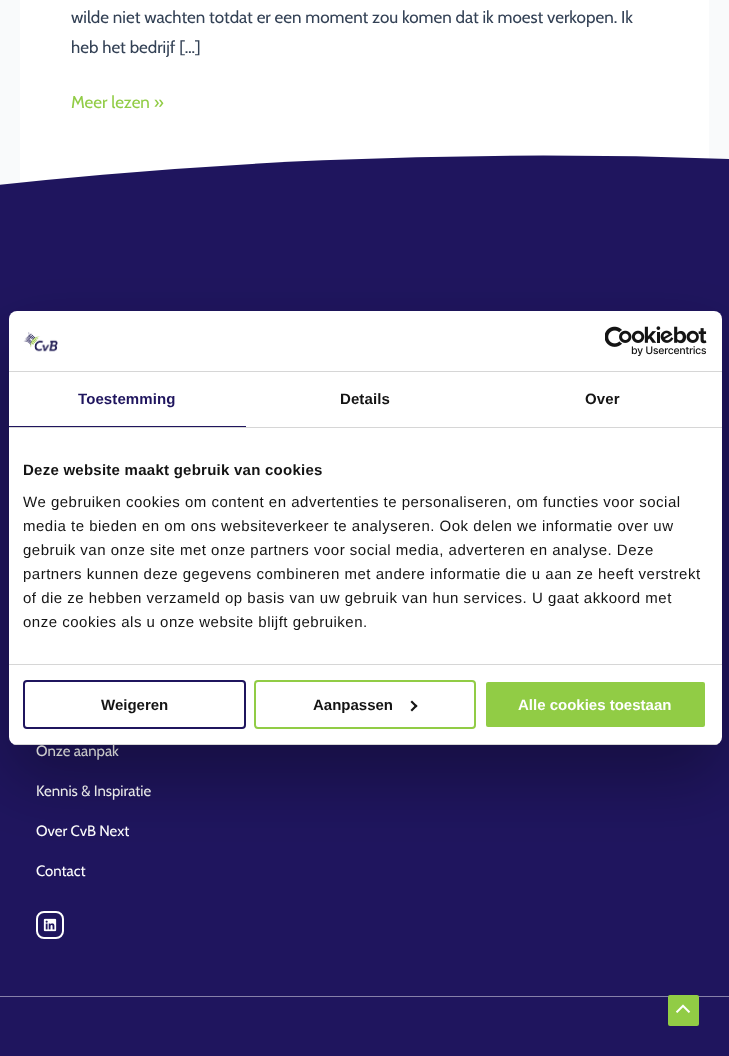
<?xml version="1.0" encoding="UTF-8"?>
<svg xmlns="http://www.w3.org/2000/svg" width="729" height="1056">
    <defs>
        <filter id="blur1" x="-50%" y="-200%" width="200%" height="500%"><feGaussianBlur stdDeviation="34"/></filter>
        <clipPath id="clip1"><rect x="9" y="311" width="713" height="434" rx="8"/></clipPath>
    </defs>
    <rect width="100%" height="100%" fill="#F9FAFB"/>
    <rect x="20" y="0" width="689" height="182" fill="#FFFFFF"/>
    <text font-family="Cabin" font-size="17" fill="#334155">
        <tspan x="71" y="23">wilde niet wachten totdat er een moment zou komen dat ik moest verkopen. Ik</tspan>
        <tspan x="71" y="53">heb het bedrijf […]</tspan>
    </text>
    <text x="71" y="108" font-family="Cabin" font-size="17" fill="#91CC45">Meer lezen »</text>
    <image x="0" y="155" width="729" height="901" href="img_01.png"/>
    <rect x="0" y="996" width="729" height="1" fill="#8680A9"/>
    <text x="36" y="756" font-family="Cabin" font-size="15" fill="#FFFFFF">Onze aanpak</text>
    <text x="36" y="796" font-family="Cabin" font-size="15" fill="#FFFFFF">Kennis &amp; Inspiratie</text>
    <text x="36" y="836" font-family="Cabin" font-size="15" fill="#FFFFFF">Over CvB Next</text>
    <text x="36" y="876" font-family="Cabin" font-size="15" fill="#FFFFFF">Contact</text>
    <rect x="37" y="912" width="26" height="26" rx="7" fill="none" stroke="#FFFFFF" stroke-width="2"/>
    <image x="43" y="918" width="14" height="14" href="img_02.png"/>
    <rect x="9" y="343" width="713" height="434" rx="8" fill="#000000" fill-opacity="0.3" filter="url(#blur1)"/>
    <rect x="9" y="311" width="713" height="434" rx="8" fill="#FFFFFF"/>
    <rect x="9" y="371" width="713" height="1" fill="#D6D6D6"/>
    <image x="23" y="332" width="35" height="20" href="img_03.png"/>
    <image x="605" y="326" width="102" height="30" href="img_04.png"/>
    <rect x="9" y="427" width="713" height="1" fill="#D6D6D6"/>
    <rect x="9" y="426" width="237" height="1" fill="#1F155E"/>
    <text x="78" y="404" font-family="Liberation Sans" font-size="15" font-weight="700" letter-spacing="0.1" fill="#1F155E">Toestemming</text>
    <text x="340" y="404" font-family="Liberation Sans" font-size="15" font-weight="700" letter-spacing="0.1" fill="#141414">Details</text>
    <text x="585" y="404" font-family="Liberation Sans" font-size="15" font-weight="700" letter-spacing="0.1" fill="#141414">Over</text>
    <rect x="9" y="664" width="713" height="1" fill="#D6D6D6"/>
    <text x="23" y="475" font-family="Liberation Sans" font-size="15" font-weight="700" letter-spacing="0.25" fill="#141414">Deze website maakt gebruik van cookies</text>
    <text font-family="Liberation Sans" font-size="15" letter-spacing="0.5" fill="#141414">
        <tspan x="23" y="507">We gebruiken cookies om content en advertenties te personaliseren, om functies voor social</tspan>
        <tspan x="23" y="531">media te bieden en om ons websiteverkeer te analyseren. Ook delen we informatie over uw</tspan>
        <tspan x="23" y="555">gebruik van onze site met onze partners voor social media, adverteren en analyse. Deze</tspan>
        <tspan x="23" y="579">partners kunnen deze gegevens combineren met andere informatie die u aan ze heeft verstrekt</tspan>
        <tspan x="23" y="603">of die ze hebben verzameld op basis van uw gebruik van hun services. U gaat akkoord met</tspan>
        <tspan x="23" y="627">onze cookies als u onze website blijft gebruiken.</tspan>
    </text>
    <g clip-path="url(#clip1)">
        <rect x="9" y="744" width="713" height="1" fill="#D6D6D6"/>
    </g>
    <rect x="24" y="681" width="221" height="47" rx="3" fill="none" stroke="#1F155E" stroke-width="2"/>
    <text x="101" y="710" font-family="Liberation Sans" font-size="15" font-weight="700" fill="#141414">Weigeren</text>
    <rect x="255" y="681" width="220" height="47" rx="3" fill="none" stroke="#91CC45" stroke-width="2"/>
    <text x="313" y="710" font-family="Liberation Sans" font-size="15" font-weight="700" fill="#141414">Aanpassen</text>
    <path d="M 412 700.5 L 417.5 706 L 416 707.5 L 410.5 702 Z" fill="#141414"/>
    <path d="M 416 704.5 L 417.5 706 L 412 711.5 L 410.5 710 Z" fill="#141414"/>
    <rect x="485" y="681" width="221" height="47" rx="3" fill="#91CC45" stroke="#FFFFFF" stroke-width="2"/>
    <text x="518" y="710" font-family="Liberation Sans" font-size="15" font-weight="700" fill="#FFFFFF">Alle cookies toestaan</text>
    <rect x="668" y="995" width="31" height="31" rx="2" fill="#91CC45"/>
    <image x="676" y="1004" width="15" height="9" href="img_05.png"/>
</svg>
